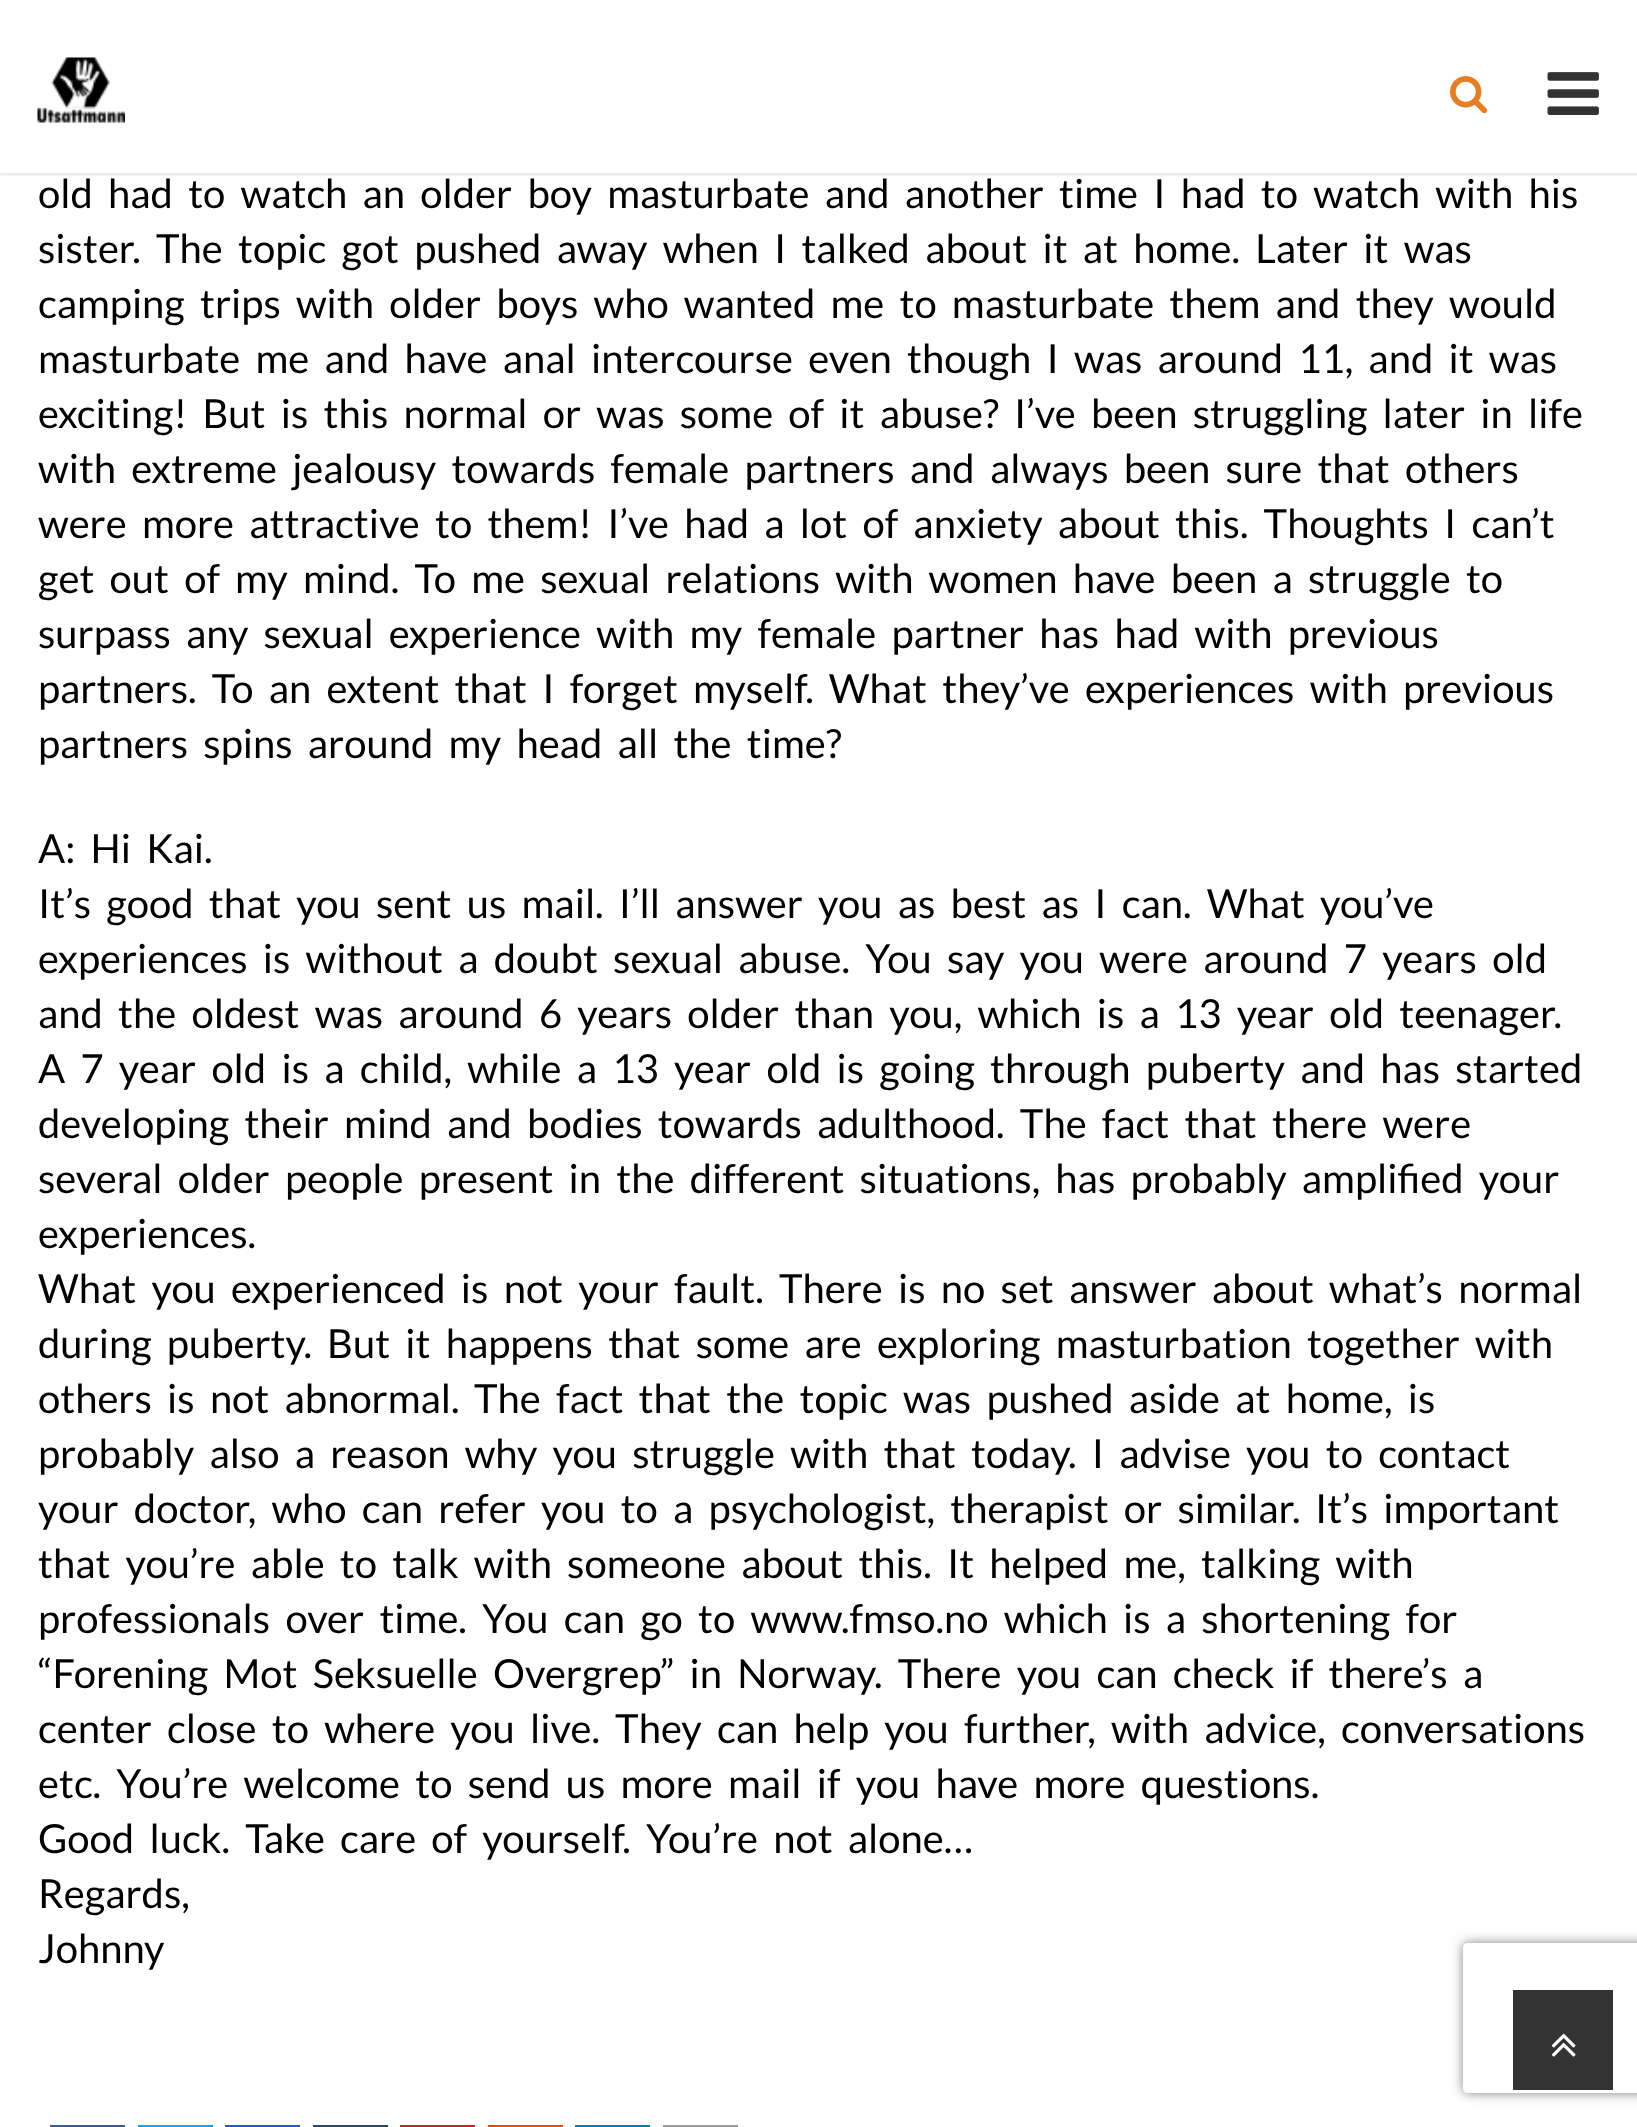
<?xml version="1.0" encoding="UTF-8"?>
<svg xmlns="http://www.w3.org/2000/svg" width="1637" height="2127">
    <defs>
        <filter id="blur1" x="-50%" y="-200%" width="200%" height="500%"><feGaussianBlur stdDeviation="1"/></filter>
        <clipPath id="clip1"><path d="M 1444 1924 H 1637 V 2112 H 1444 Z M 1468 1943 H 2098 C 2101 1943 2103 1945 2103 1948 V 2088 C 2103 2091 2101 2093 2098 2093 H 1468 C 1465 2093 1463 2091 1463 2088 V 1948 C 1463 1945 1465 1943 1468 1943 Z" clip-rule="evenodd"/></clipPath>
        <filter id="blur2" x="-50%" y="-200%" width="200%" height="500%"><feGaussianBlur stdDeviation="6"/></filter>
    </defs>
    <rect width="100%" height="100%" fill="#FFFFFF"/>
    <rect x="0" y="3" width="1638" height="172" fill="#000000" fill-opacity="0.1" filter="url(#blur1)"/>
    <rect x="0" y="2" width="1637" height="171" fill="#FFFFFF"/>
    <image x="37" y="57" width="88" height="66" href="img_01.png"/>
    <image x="1450" y="76" width="38" height="38" href="img_02.png"/>
    <image x="1547" y="72" width="52" height="43" href="img_03.png"/>
    <text font-family="Lato" font-size="40" fill="#000000">
        <tspan x="38" y="208" word-spacing="7.5">old had to watch an older boy masturbate and another time I had to watch with his</tspan>
        <tspan x="38" y="263" word-spacing="7.5">sister. The topic got pushed away when I talked about it at home. Later it was</tspan>
        <tspan x="38" y="318" word-spacing="7.5">camping trips with older boys who wanted me to masturbate them and they would</tspan>
        <tspan x="38" y="373" word-spacing="7.5">masturbate me and have anal intercourse even though I was around 11, and it was</tspan>
        <tspan x="38" y="428" word-spacing="7.5">exciting! But is this normal or was some of it abuse? I’ve been struggling later in life</tspan>
        <tspan x="38" y="483" word-spacing="7.5">with extreme jealousy towards female partners and always been sure that others</tspan>
        <tspan x="38" y="538" word-spacing="7.5">were more attractive to them! I’ve had a lot of anxiety about this. Thoughts I can’t</tspan>
        <tspan x="38" y="593" word-spacing="7.5">get out of my mind. To me sexual relations with women have been a struggle to</tspan>
        <tspan x="38" y="648" word-spacing="7.5">surpass any sexual experience with my female partner has had with previous</tspan>
        <tspan x="38" y="703" word-spacing="7.5">partners. To an extent that I forget myself. What they’ve experiences with previous</tspan>
        <tspan x="38" y="758" word-spacing="7.5">partners spins around my head all the time?</tspan>
    </text>
    <text font-family="Lato" font-size="40" fill="#000000">
        <tspan x="38" y="863" word-spacing="7.5">A: Hi Kai.</tspan>
        <tspan x="38" y="918" word-spacing="7.5">It’s good that you sent us mail. I’ll answer you as best as I can. What you’ve</tspan>
        <tspan x="38" y="973" word-spacing="7.5">experiences is without a doubt sexual abuse. You say you were around 7 years old</tspan>
        <tspan x="38" y="1028" word-spacing="7.5">and the oldest was around 6 years older than you, which is a 13 year old teenager.</tspan>
        <tspan x="38" y="1083" word-spacing="7.5">A 7 year old is a child, while a 13 year old is going through puberty and has started</tspan>
        <tspan x="38" y="1138" word-spacing="7.5">developing their mind and bodies towards adulthood. The fact that there were</tspan>
        <tspan x="38" y="1193" word-spacing="7.5">several older people present in the different situations, has probably amplified your</tspan>
        <tspan x="38" y="1248">experiences.</tspan>
        <tspan x="38" y="1303" word-spacing="7.5">What you experienced is not your fault. There is no set answer about what’s normal</tspan>
        <tspan x="38" y="1358" word-spacing="7.5">during puberty. But it happens that some are exploring masturbation together with</tspan>
        <tspan x="38" y="1413" word-spacing="7.5">others is not abnormal.</tspan>
    </text>
    <text x="474" y="1413" word-spacing="7.5" font-family="Lato" font-size="40" fill="#000000">The fact that the topic was pushed aside at home, is</text>
    <text font-family="Lato" font-size="40" fill="#000000">
        <tspan x="38" y="1468" word-spacing="7.5">probably also a reason why you struggle with that today. I advise you to contact</tspan>
        <tspan x="38" y="1523" word-spacing="7.5">your doctor, who can refer you to a psychologist, therapist or similar.</tspan>
    </text>
    <text x="1315" y="1523" word-spacing="7.5" font-family="Lato" font-size="40" fill="#000000">It’s important</text>
    <text font-family="Lato" font-size="40" fill="#000000">
        <tspan x="38" y="1578" word-spacing="7.5">that you’re able to talk with someone about this. It helped me, talking with</tspan>
        <tspan x="38" y="1633" word-spacing="7.5">professionals over time. You can go to www.fmso.no which is a shortening for</tspan>
        <tspan x="38" y="1688" word-spacing="7.5">“Forening Mot Seksuelle Overgrep” in Norway. There you can check if there’s a</tspan>
        <tspan x="38" y="1743" word-spacing="7.5">center close to where you live. They can help you further, with advice, conversations</tspan>
        <tspan x="38" y="1798" word-spacing="7.5">etc. You’re welcome to send us more mail if you have more questions.</tspan>
        <tspan x="38" y="1853" word-spacing="7.5">Good luck. Take care of yourself. You’re not alone…</tspan>
        <tspan x="38" y="1908">Regards,</tspan>
        <tspan x="38" y="1963">Johnny</tspan>
    </text>
    <rect x="50" y="2125" width="75" height="2" fill="#3B5998"/>
    <rect x="138" y="2125" width="75" height="2" fill="#00ACED"/>
    <rect x="225" y="2125" width="75" height="2" fill="#245DC1"/>
    <rect x="313" y="2125" width="75" height="2" fill="#2C4762"/>
    <rect x="400" y="2125" width="75" height="2" fill="#CB2027"/>
    <rect x="488" y="2125" width="75" height="2" fill="#FF4500"/>
    <rect x="575" y="2125" width="75" height="2" fill="#007FB1"/>
    <rect x="663" y="2125" width="75" height="2" fill="#999999"/>
    <g clip-path="url(#clip1)">
        <rect x="1463" y="1943" width="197" height="150" rx="5" fill="#808080" filter="url(#blur2)"/>
    </g>
    <rect x="1513" y="1990" width="100" height="100" fill="#333333"/>
    <image x="1551" y="2033" width="25" height="24" href="img_04.png"/>
</svg>
